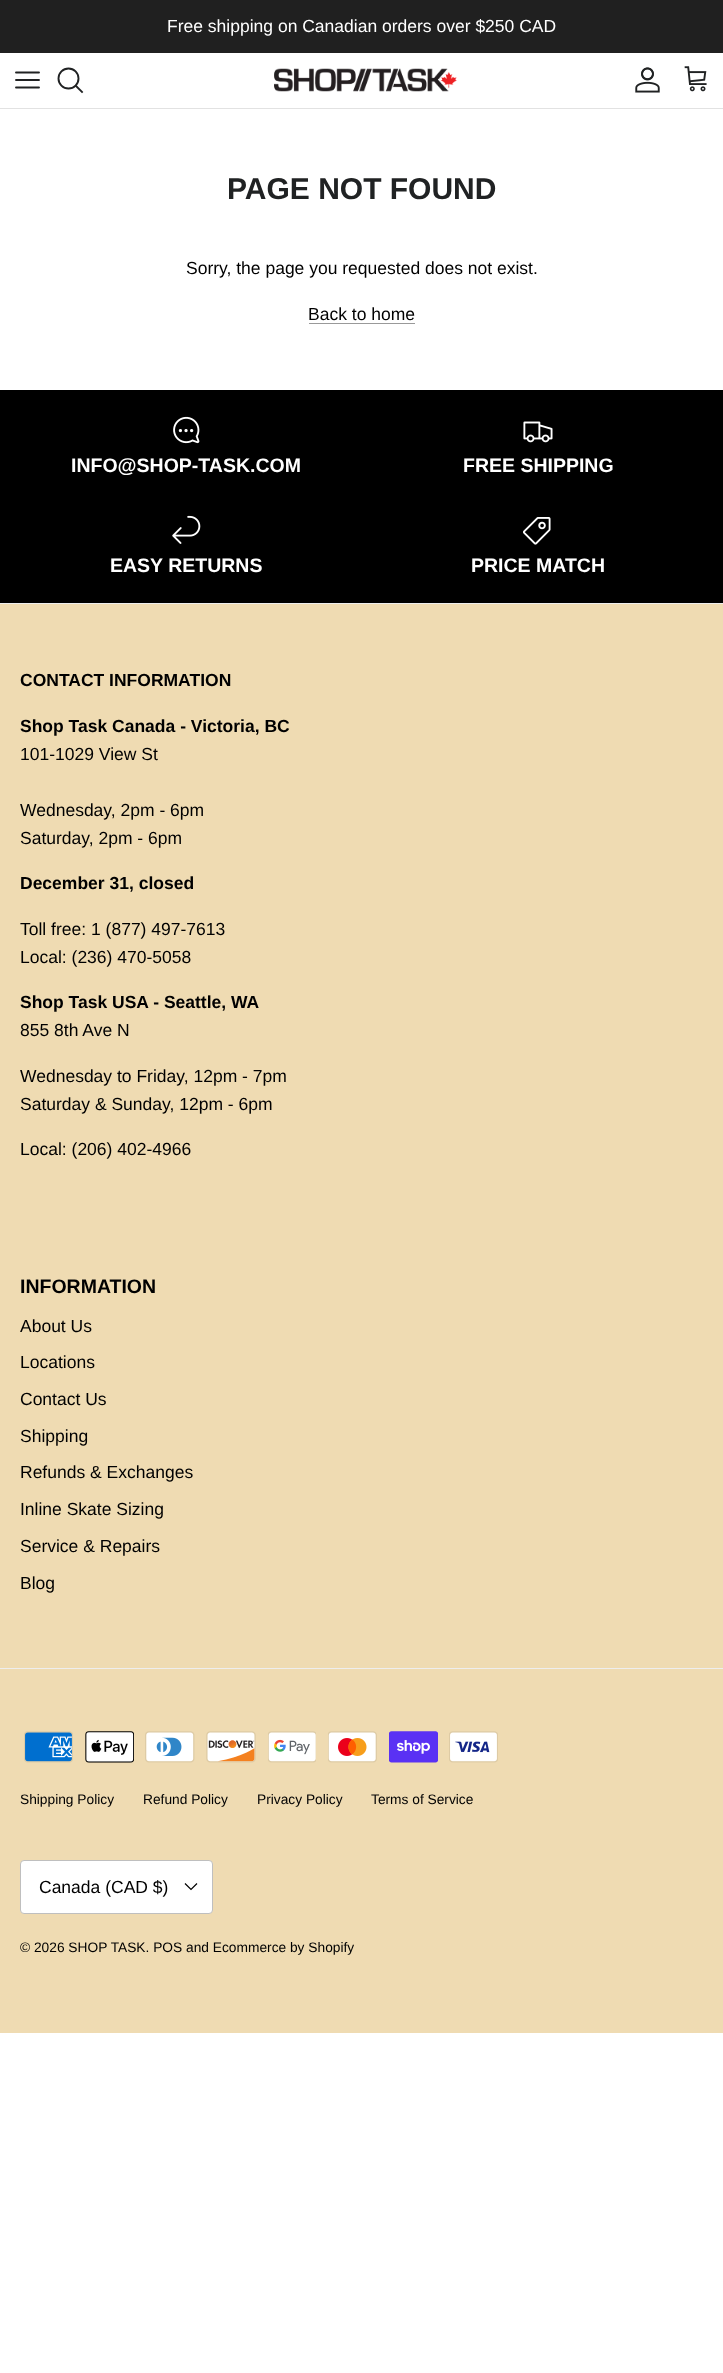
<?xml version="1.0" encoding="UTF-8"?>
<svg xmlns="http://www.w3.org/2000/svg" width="723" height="2373">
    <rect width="100%" height="100%" fill="#FFFFFF"/>
    <rect x="0" y="0" width="723" height="53" fill="#202020"/>
    <text x="167" y="32" font-family="Liberation Sans" font-size="17.5" fill="#FFFFFF">Free shipping on Canadian orders over $250 CAD</text>
    <rect x="0" y="108" width="723" height="1" fill="#E2E2E2"/>
    <path d="M 16 80 H 39 M 16 72.5 H 39 M 16 87.5 H 39" fill="none" stroke="#202223" stroke-width="1.9" stroke-linecap="round" stroke-linejoin="round"/>
    <circle cx="68.5" cy="78.5" r="10" fill="none" stroke="#202223" stroke-width="1.9"/>
    <path d="M 76 86 L 82 92" fill="none" stroke="#202223" stroke-width="1.9" stroke-linecap="square"/>
    <image x="274" y="68" width="183" height="24" href="img_01.png"/>
    <image x="635" y="67" width="25" height="26" href="img_02.png"/>
    <image x="684" y="66" width="23" height="26" href="img_03.png"/>
    <text x="227" y="199" font-family="Liberation Sans" font-size="30" font-weight="700" fill="#202223">PAGE NOT FOUND</text>
    <text x="186" y="274" font-family="Liberation Sans" font-size="17.5" fill="#000000">Sorry, the page you requested does not exist.</text>
    <text x="308" y="320" font-family="Liberation Sans" font-size="17.5" fill="#000000">Back to home</text>
    <rect x="309" y="323" width="106" height="1" fill="#999999"/>
    <rect x="0" y="390" width="723" height="213" fill="#000000"/>
    <image x="173" y="416" width="27" height="28" href="img_04.png"/>
    <text x="71" y="472" font-family="Liberation Sans" font-size="19.5" font-weight="700" fill="#FFFFFF">INFO@SHOP-TASK.COM</text>
    <image x="523" y="421" width="30" height="22" href="img_05.png"/>
    <text x="463" y="472" font-family="Liberation Sans" font-size="19.5" font-weight="700" fill="#FFFFFF">FREE SHIPPING</text>
    <image x="172" y="515" width="29" height="29" href="img_06.png"/>
    <text x="110" y="572" font-family="Liberation Sans" font-size="19.5" font-weight="700" fill="#FFFFFF">EASY RETURNS</text>
    <image x="523" y="517" width="28" height="28" href="img_07.png"/>
    <text x="471" y="572" font-family="Liberation Sans" font-size="19.5" font-weight="700" fill="#FFFFFF">PRICE MATCH</text>
    <rect x="0" y="604" width="723" height="1429" fill="#EFDBB2"/>
    <rect x="0" y="603" width="723" height="1" fill="#EEEEEE"/>
    <text x="20" y="686" font-family="Liberation Sans" font-size="17.5" font-weight="700" fill="#000000">CONTACT INFORMATION</text>
    <text x="20" y="732" font-family="Liberation Sans" font-size="17.5" font-weight="700" fill="#000000">Shop Task Canada - Victoria, BC</text>
    <text x="20" y="760" font-family="Liberation Sans" font-size="17.5" fill="#000000">101-1029 View St</text>
    <text font-family="Liberation Sans" font-size="17.5" fill="#000000">
        <tspan x="20" y="816">Wednesday, 2pm - 6pm</tspan>
        <tspan x="20" y="844">Saturday, 2pm - 6pm</tspan>
    </text>
    <text x="20" y="889" font-family="Liberation Sans" font-size="17.5" font-weight="700" fill="#000000">December 31, closed</text>
    <text font-family="Liberation Sans" font-size="17.5" fill="#000000">
        <tspan x="20" y="935">Toll free: 1 (877) 497-7613</tspan>
        <tspan x="20" y="963">Local: (236) 470-5058</tspan>
    </text>
    <text x="20" y="1008" font-family="Liberation Sans" font-size="17.5" font-weight="700" fill="#000000">Shop Task USA - Seattle, WA</text>
    <text x="20" y="1036" font-family="Liberation Sans" font-size="17.5" fill="#000000">855 8th Ave N</text>
    <text font-family="Liberation Sans" font-size="17.5" fill="#000000">
        <tspan x="20" y="1082">Wednesday to Friday, 12pm - 7pm</tspan>
        <tspan x="20" y="1110">Saturday &amp; Sunday, 12pm - 6pm</tspan>
    </text>
    <text x="20" y="1155" font-family="Liberation Sans" font-size="17.5" fill="#000000">Local: (206) 402-4966</text>
    <text x="20" y="1293" font-family="Liberation Sans" font-size="19.5" font-weight="700" fill="#000000">INFORMATION</text>
    <text x="20" y="1332" font-family="Liberation Sans" font-size="17.5" fill="#000000">About Us</text>
    <text x="20" y="1368" font-family="Liberation Sans" font-size="17.5" fill="#000000">Locations</text>
    <text x="20" y="1405" font-family="Liberation Sans" font-size="17.5" fill="#000000">Contact Us</text>
    <text x="20" y="1442" font-family="Liberation Sans" font-size="17.5" fill="#000000">Shipping</text>
    <text x="20" y="1478" font-family="Liberation Sans" font-size="17.5" fill="#000000">Refunds &amp; Exchanges</text>
    <text x="20" y="1515" font-family="Liberation Sans" font-size="17.5" fill="#000000">Inline Skate Sizing</text>
    <text x="20" y="1552" font-family="Liberation Sans" font-size="17.5" fill="#000000">Service &amp; Repairs</text>
    <text x="20" y="1589" font-family="Liberation Sans" font-size="17.5" fill="#000000">Blog</text>
    <rect x="0" y="1668" width="723" height="1" fill="#EEEEEE"/>
    <image x="24" y="1731" width="49" height="32" href="img_08.png"/>
    <image x="85" y="1731" width="49" height="32" href="img_09.png"/>
    <image x="145" y="1731" width="50" height="32" href="img_10.png"/>
    <image x="206" y="1731" width="50" height="32" href="img_11.png"/>
    <image x="268" y="1731" width="48" height="32" href="img_12.png"/>
    <image x="328" y="1731" width="49" height="32" href="img_13.png"/>
    <image x="389" y="1731" width="49" height="32" href="img_14.png"/>
    <image x="449" y="1731" width="49" height="32" href="img_15.png"/>
    <text x="20" y="1804" font-family="Liberation Sans" font-size="13.75" fill="#000000">Shipping Policy</text>
    <text x="143" y="1804" font-family="Liberation Sans" font-size="13.75" fill="#000000">Refund Policy</text>
    <text x="257" y="1804" font-family="Liberation Sans" font-size="13.75" fill="#000000">Privacy Policy</text>
    <text x="371" y="1804" font-family="Liberation Sans" font-size="13.75" fill="#000000">Terms of Service</text>
    <rect x="20.5" y="1860.5" width="192" height="53" rx="3.5" fill="#FFFFFF" stroke="#BFBFBF"/>
    <text x="39" y="1893" font-family="Liberation Sans" font-size="17.5" fill="#000000">Canada (CAD $)</text>
    <path d="M 197 1883.5 L 191 1889.5 L 185 1883.5" fill="none" stroke="#000000" stroke-width="1.2"/>
    <text x="20" y="1952" font-family="Liberation Sans" font-size="13.75" fill="#000000">© 2026 SHOP TASK. POS and Ecommerce by Shopify</text>
</svg>
